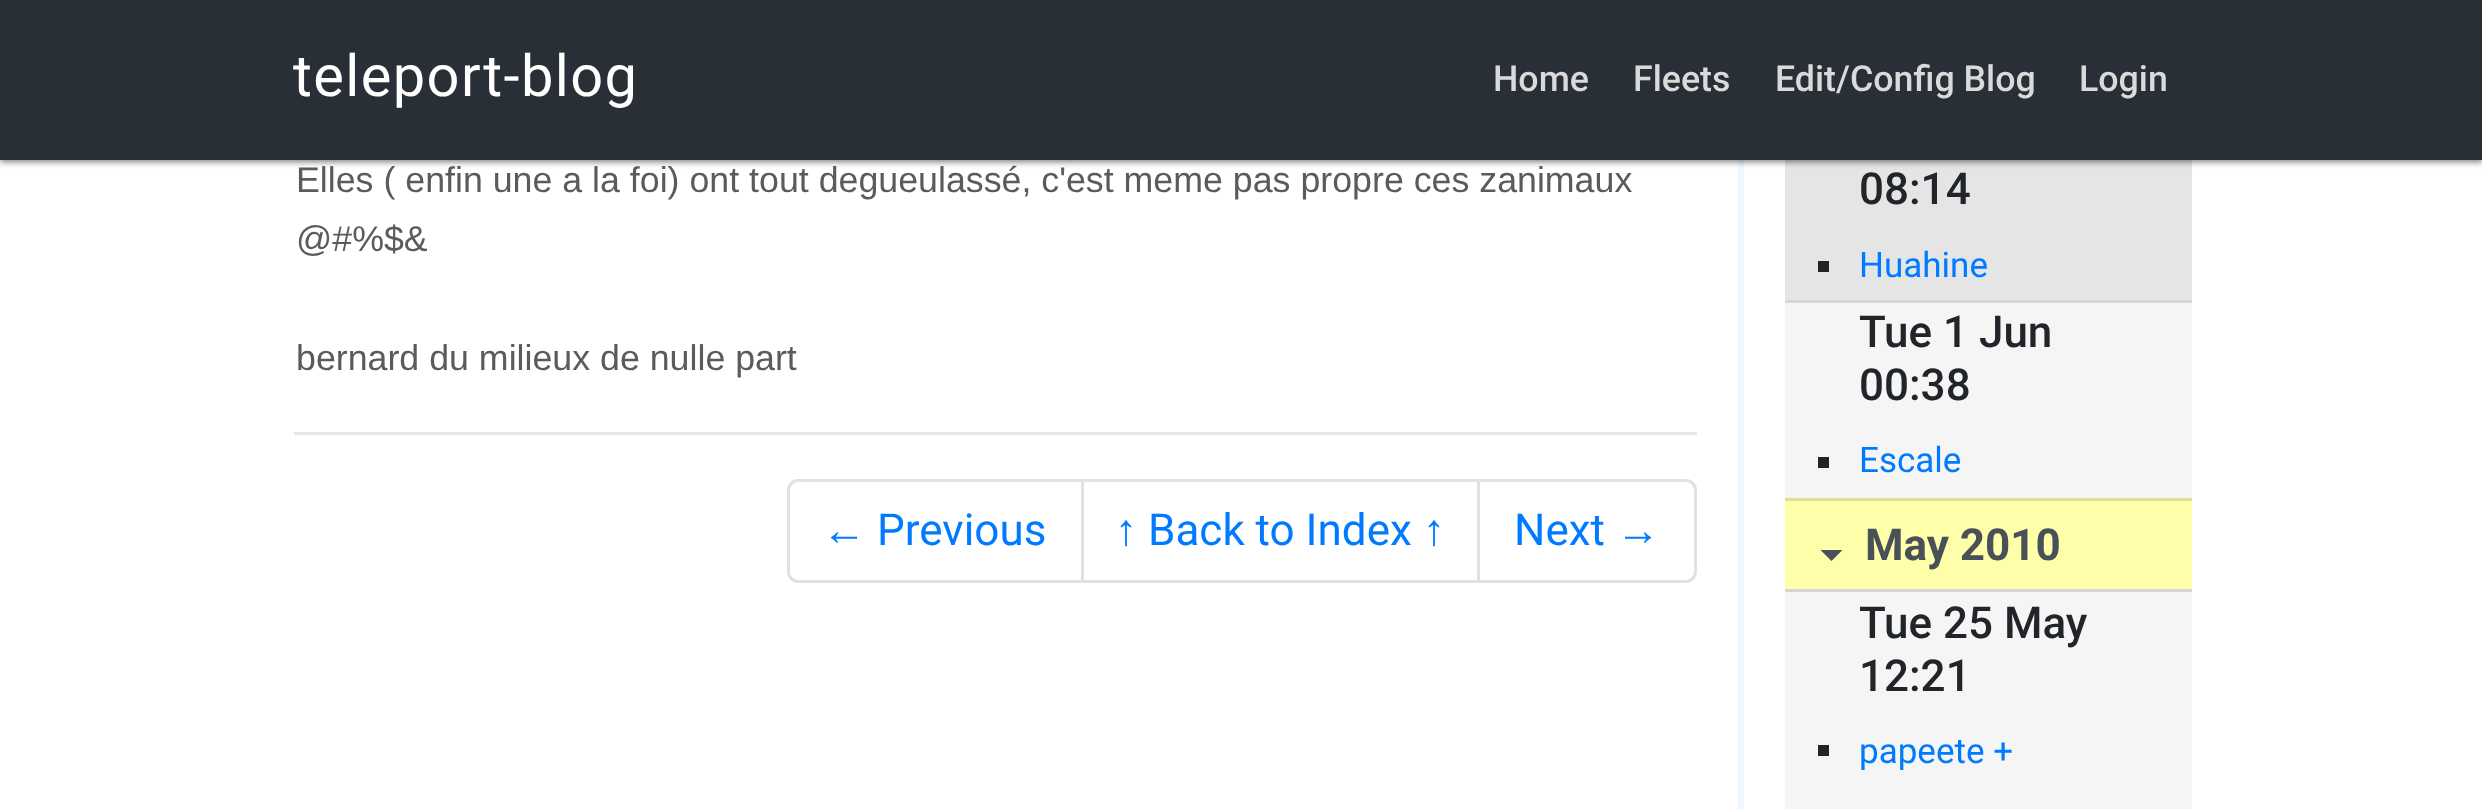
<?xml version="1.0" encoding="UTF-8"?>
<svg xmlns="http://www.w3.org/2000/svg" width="2482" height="809">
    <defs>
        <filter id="blur1" x="-50%" y="-200%" width="200%" height="500%"><feGaussianBlur stdDeviation="3"/></filter>
    </defs>
    <rect width="100%" height="100%" fill="#FFFFFF"/>
    <rect x="1738" y="160" width="6" height="649" fill="#F0F8FF"/>
    <rect x="1785" y="160" width="407" height="140" fill="#E5E5E5"/>
    <rect x="0" y="3" width="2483" height="159" fill="#000000" fill-opacity="0.5" filter="url(#blur1)"/>
    <rect x="0" y="0" width="2482" height="160" fill="#282F37"/>
    <text x="293" y="96" font-family="Roboto" font-size="57.75" letter-spacing="1.4" fill="#FFFFFF">teleport-blog</text>
    <text x="1493" y="91" font-family="Roboto" font-size="35.75" font-weight="500" fill="#DADADA">Home</text>
    <text x="1633" y="91" font-family="Roboto" font-size="35.75" font-weight="500" fill="#DADADA">Fleets</text>
    <text x="1775" y="91" font-family="Roboto" font-size="35.75" font-weight="500" fill="#DADADA">Edit/Config Blog</text>
    <text x="2079" y="91" font-family="Roboto" font-size="35.75" font-weight="500" fill="#DADADA">Login</text>
    <text font-family="Liberation Sans" font-size="35.75" fill="#5B5B5B">
        <tspan x="296" y="192">Elles ( enfin une a la foi) ont tout degueulassé, c'est meme pas propre ces zanimaux</tspan>
        <tspan x="296" y="251">@#%$&amp;</tspan>
    </text>
    <text x="296" y="370" font-family="Liberation Sans" font-size="35.75" fill="#5B5B5B">bernard du milieux de nulle part</text>
    <rect x="294" y="432" width="1403" height="3" fill="#E6E6E6"/>
    <path d="M 798 480.5 H 1082.5 V 581.5 H 798 C 793 581.5 788.5 577 788.5 572 V 490 C 788.5 485 793 480.5 798 480.5 Z" fill="none" stroke="#DEE2E6" stroke-width="3"/>
    <text x="822" y="545" font-family="Liberation Sans" font-size="44" fill="#007BFF">←</text>
    <text x="877" y="545" font-family="Roboto" font-size="44" fill="#007BFF">Previous</text>
    <rect x="1082.5" y="480.5" width="396" height="101" fill="none" stroke="#DEE2E6" stroke-width="3"/>
    <text x="1115" y="545" font-family="Liberation Sans" font-size="44" fill="#007BFF">↑</text>
    <text x="1148" y="545" font-family="Roboto" font-size="44" fill="#007BFF">Back to Index</text>
    <text x="1423" y="545" font-family="Liberation Sans" font-size="44" fill="#007BFF">↑</text>
    <path d="M 1478.5 480.5 H 1686 C 1691 480.5 1695.5 485 1695.5 490 V 572 C 1695.5 577 1691 581.5 1686 581.5 H 1478.5 Z" fill="#FFFFFF" stroke="#DEE2E6" stroke-width="3"/>
    <text x="1514" y="545" font-family="Roboto" font-size="44" fill="#007BFF">Next</text>
    <text x="1616" y="545" font-family="Liberation Sans" font-size="44" fill="#007BFF">→</text>
    <text x="1859" y="204" font-family="Roboto" font-size="44" font-weight="500" fill="#212529">08:14</text>
    <rect x="1818" y="261" width="11" height="11" fill="#212529"/>
    <text x="1859" y="277" font-family="Roboto" font-size="35" fill="#007BFF">Huahine</text>
    <rect x="1785" y="303" width="407" height="195" fill="#F5F5F5"/>
    <rect x="1785" y="300" width="407" height="3" fill="#D6D6D6"/>
    <text font-family="Roboto" font-size="44" font-weight="500" fill="#212529">
        <tspan x="1859" y="347">Tue 1 Jun</tspan>
        <tspan x="1859" y="400">00:38</tspan>
    </text>
    <rect x="1818" y="457" width="11" height="11" fill="#212529"/>
    <text x="1859" y="472" font-family="Roboto" font-size="35" fill="#007BFF">Escale</text>
    <rect x="1785" y="501" width="407" height="88" fill="#FFFFAA"/>
    <rect x="1785" y="498" width="407" height="3" fill="#DFDF95"/>
    <path d="M 1820.5 550 H 1842.5 L 1831.5 561 Z" fill="#495057"/>
    <text x="1865" y="560" font-family="Roboto" font-size="44" font-weight="700" fill="#495057">May 2010</text>
    <rect x="1785" y="592" width="407" height="217" fill="#F5F5F5"/>
    <rect x="1785" y="589" width="407" height="3" fill="#D6D6D6"/>
    <text font-family="Roboto" font-size="44" font-weight="500" fill="#212529">
        <tspan x="1859" y="638">Tue 25 May</tspan>
        <tspan x="1859" y="691">12:21</tspan>
    </text>
    <rect x="1818" y="745" width="11" height="11" fill="#212529"/>
    <text x="1859" y="763" font-family="Roboto" font-size="35" fill="#007BFF">papeete +</text>
</svg>
